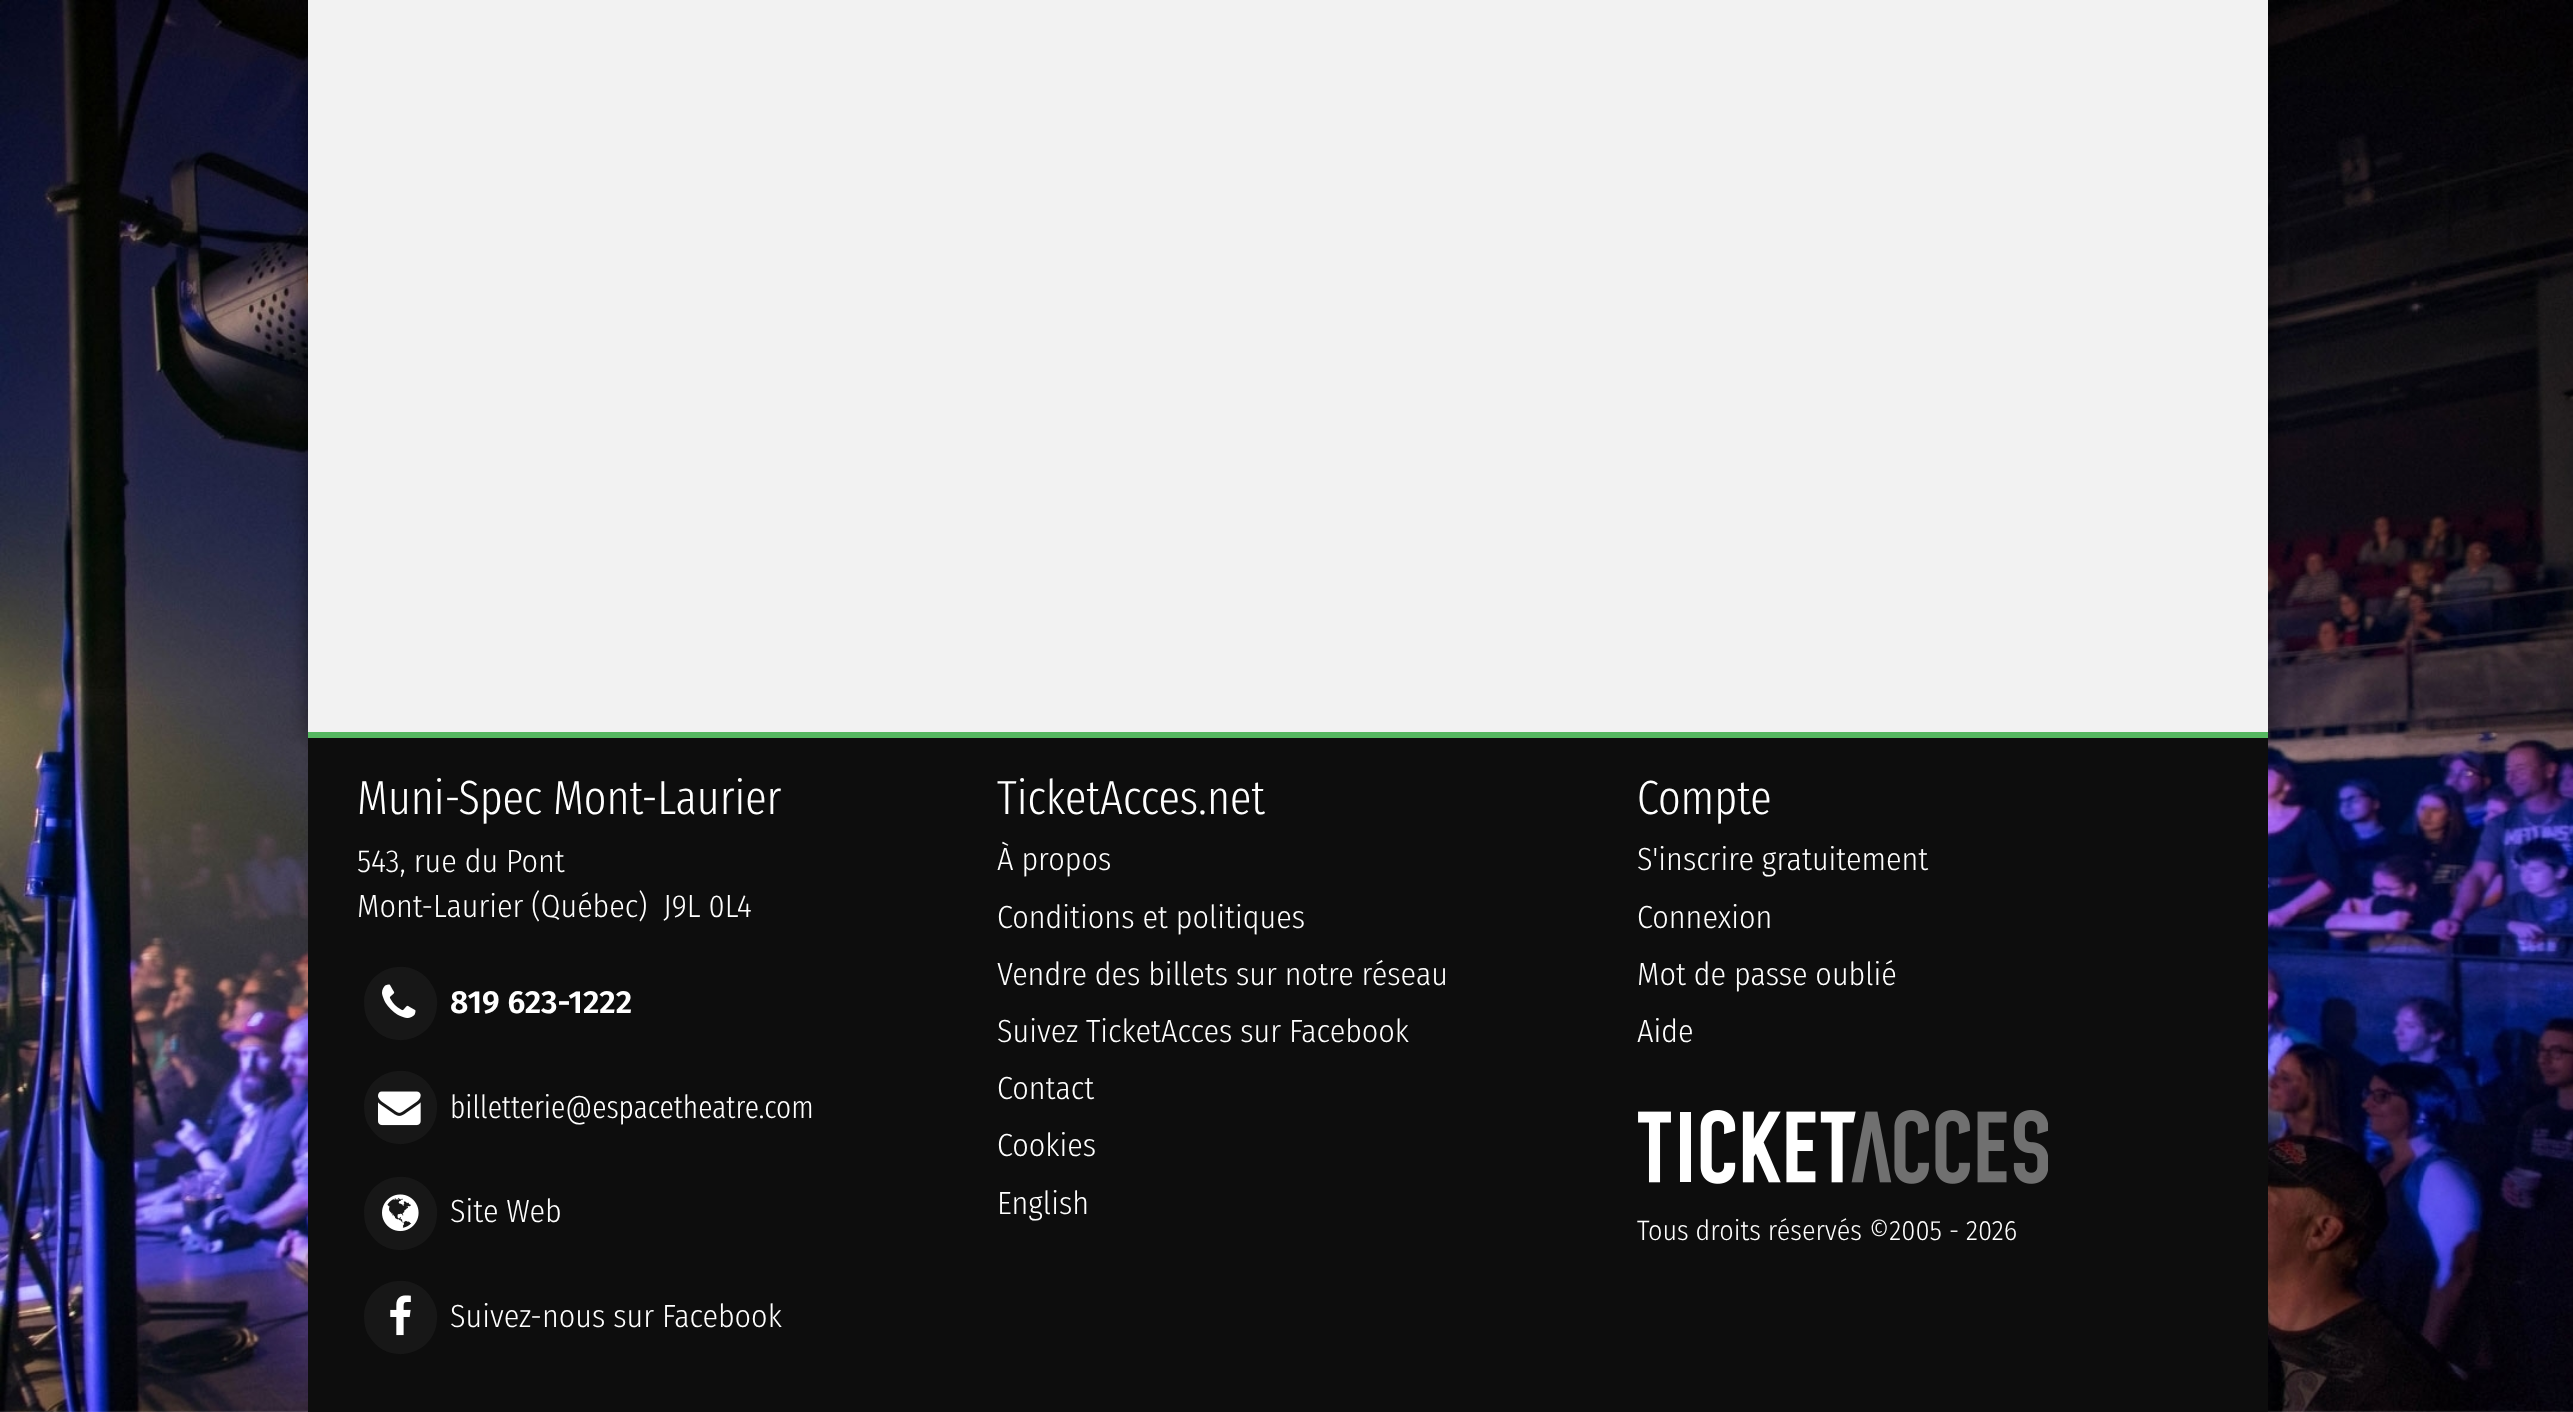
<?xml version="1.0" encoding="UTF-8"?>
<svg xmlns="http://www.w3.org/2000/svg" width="2573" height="1412">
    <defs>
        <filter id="blur1" x="-50%" y="-200%" width="200%" height="500%"><feGaussianBlur stdDeviation="10"/></filter>
    </defs>
    <rect width="100%" height="100%" fill="#FFFFFF"/>
    <image x="0" y="0" width="2573" height="1412" href="img_01.png"/>
    <rect x="308" y="-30" width="1960" height="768" fill="#000000" fill-opacity="0.5" filter="url(#blur1)"/>
    <rect x="308" y="0" width="1960" height="732" fill="#F2F2F2"/>
    <rect x="308" y="732" width="1960" height="6" fill="#55B760"/>
    <rect x="308" y="738" width="1960" height="674" fill="#0D0D0D"/>
    <text x="357" y="814" font-family="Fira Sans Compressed" font-size="48" font-weight="300" fill="#FFFFFF">Muni-Spec Mont-Laurier</text>
    <text font-family="Fira Sans Condensed" font-size="32" font-weight="300" fill="#FFFFFF" xml:space="preserve"><tspan x="357" y="872">543, rue du Pont</tspan><tspan x="357" y="917">Mont-Laurier (Québec)  J9L 0L4</tspan></text>
    <path d="M 432 985 C 436 991 438 999 437 1006 C 435 1042 387 1053 369 1022 C 365 1016 364 1008 364 1001 C 366 965 414 954 432 985 Z" fill="#171717"/>
    <image x="382" y="984" width="34" height="34" href="img_02.png"/>
    <text x="450" y="1013" font-family="Fira Sans" font-size="32" font-weight="600" fill="#FFFFFF">819 623-1222</text>
    <path d="M 432 1089 C 436 1095 438 1103 437 1110 C 435 1146 387 1157 369 1126 C 365 1120 364 1112 364 1105 C 366 1069 414 1058 432 1089 Z" fill="#171717"/>
    <image x="378" y="1091" width="43" height="35" href="img_03.png"/>
    <text x="450" y="1118" font-family="Fira Sans Compressed" font-size="32" font-weight="300" fill="#FFFFFF">billetterie@espacetheatre.com</text>
    <path d="M 432 1195 C 436 1201 438 1209 437 1216 C 435 1252 387 1263 369 1232 C 365 1226 364 1218 364 1211 C 366 1175 414 1164 432 1195 Z" fill="#171717"/>
    <image x="382" y="1194" width="37" height="38" href="img_04.png"/>
    <text x="450" y="1222" font-family="Fira Sans Condensed" font-size="32" font-weight="300" fill="#FFFFFF">Site Web</text>
    <path d="M 432 1299 C 436 1305 438 1313 437 1320 C 435 1356 387 1367 369 1336 C 365 1330 364 1322 364 1315 C 366 1279 414 1268 432 1299 Z" fill="#171717"/>
    <image x="390" y="1295" width="21" height="41" href="img_05.png"/>
    <text x="450" y="1327" font-family="Fira Sans Condensed" font-size="32" font-weight="300" fill="#FFFFFF">Suivez-nous sur Facebook</text>
    <text x="997" y="814" font-family="Fira Sans Compressed" font-size="48" font-weight="300" fill="#FFFFFF">TicketAcces.net</text>
    <text font-family="Fira Sans Condensed" font-size="32" font-weight="300" fill="#FFFFFF">
        <tspan x="997" y="870">À propos</tspan>
        <tspan x="997" y="928">Conditions et politiques</tspan>
        <tspan x="997" y="985">Vendre des billets sur notre réseau</tspan>
        <tspan x="997" y="1042">Suivez TicketAcces sur Facebook</tspan>
        <tspan x="997" y="1099">Contact</tspan>
        <tspan x="997" y="1156">Cookies</tspan>
        <tspan x="997" y="1214">English</tspan>
    </text>
    <text x="1637" y="814" font-family="Fira Sans Compressed" font-size="48" font-weight="300" fill="#FFFFFF">Compte</text>
    <text font-family="Fira Sans Condensed" font-size="32" font-weight="300" fill="#FFFFFF">
        <tspan x="1637" y="870">S'inscrire gratuitement</tspan>
        <tspan x="1637" y="928">Connexion</tspan>
        <tspan x="1637" y="985">Mot de passe oublié</tspan>
        <tspan x="1637" y="1042">Aide</tspan>
    </text>
    <image x="1638" y="1110" width="410" height="74" href="img_06.png"/>
    <text x="1637" y="1240" font-family="Fira Sans Condensed" font-size="28" font-weight="300" fill="#FFFFFF">Tous droits réservés ©2005 - 2026</text>
</svg>
